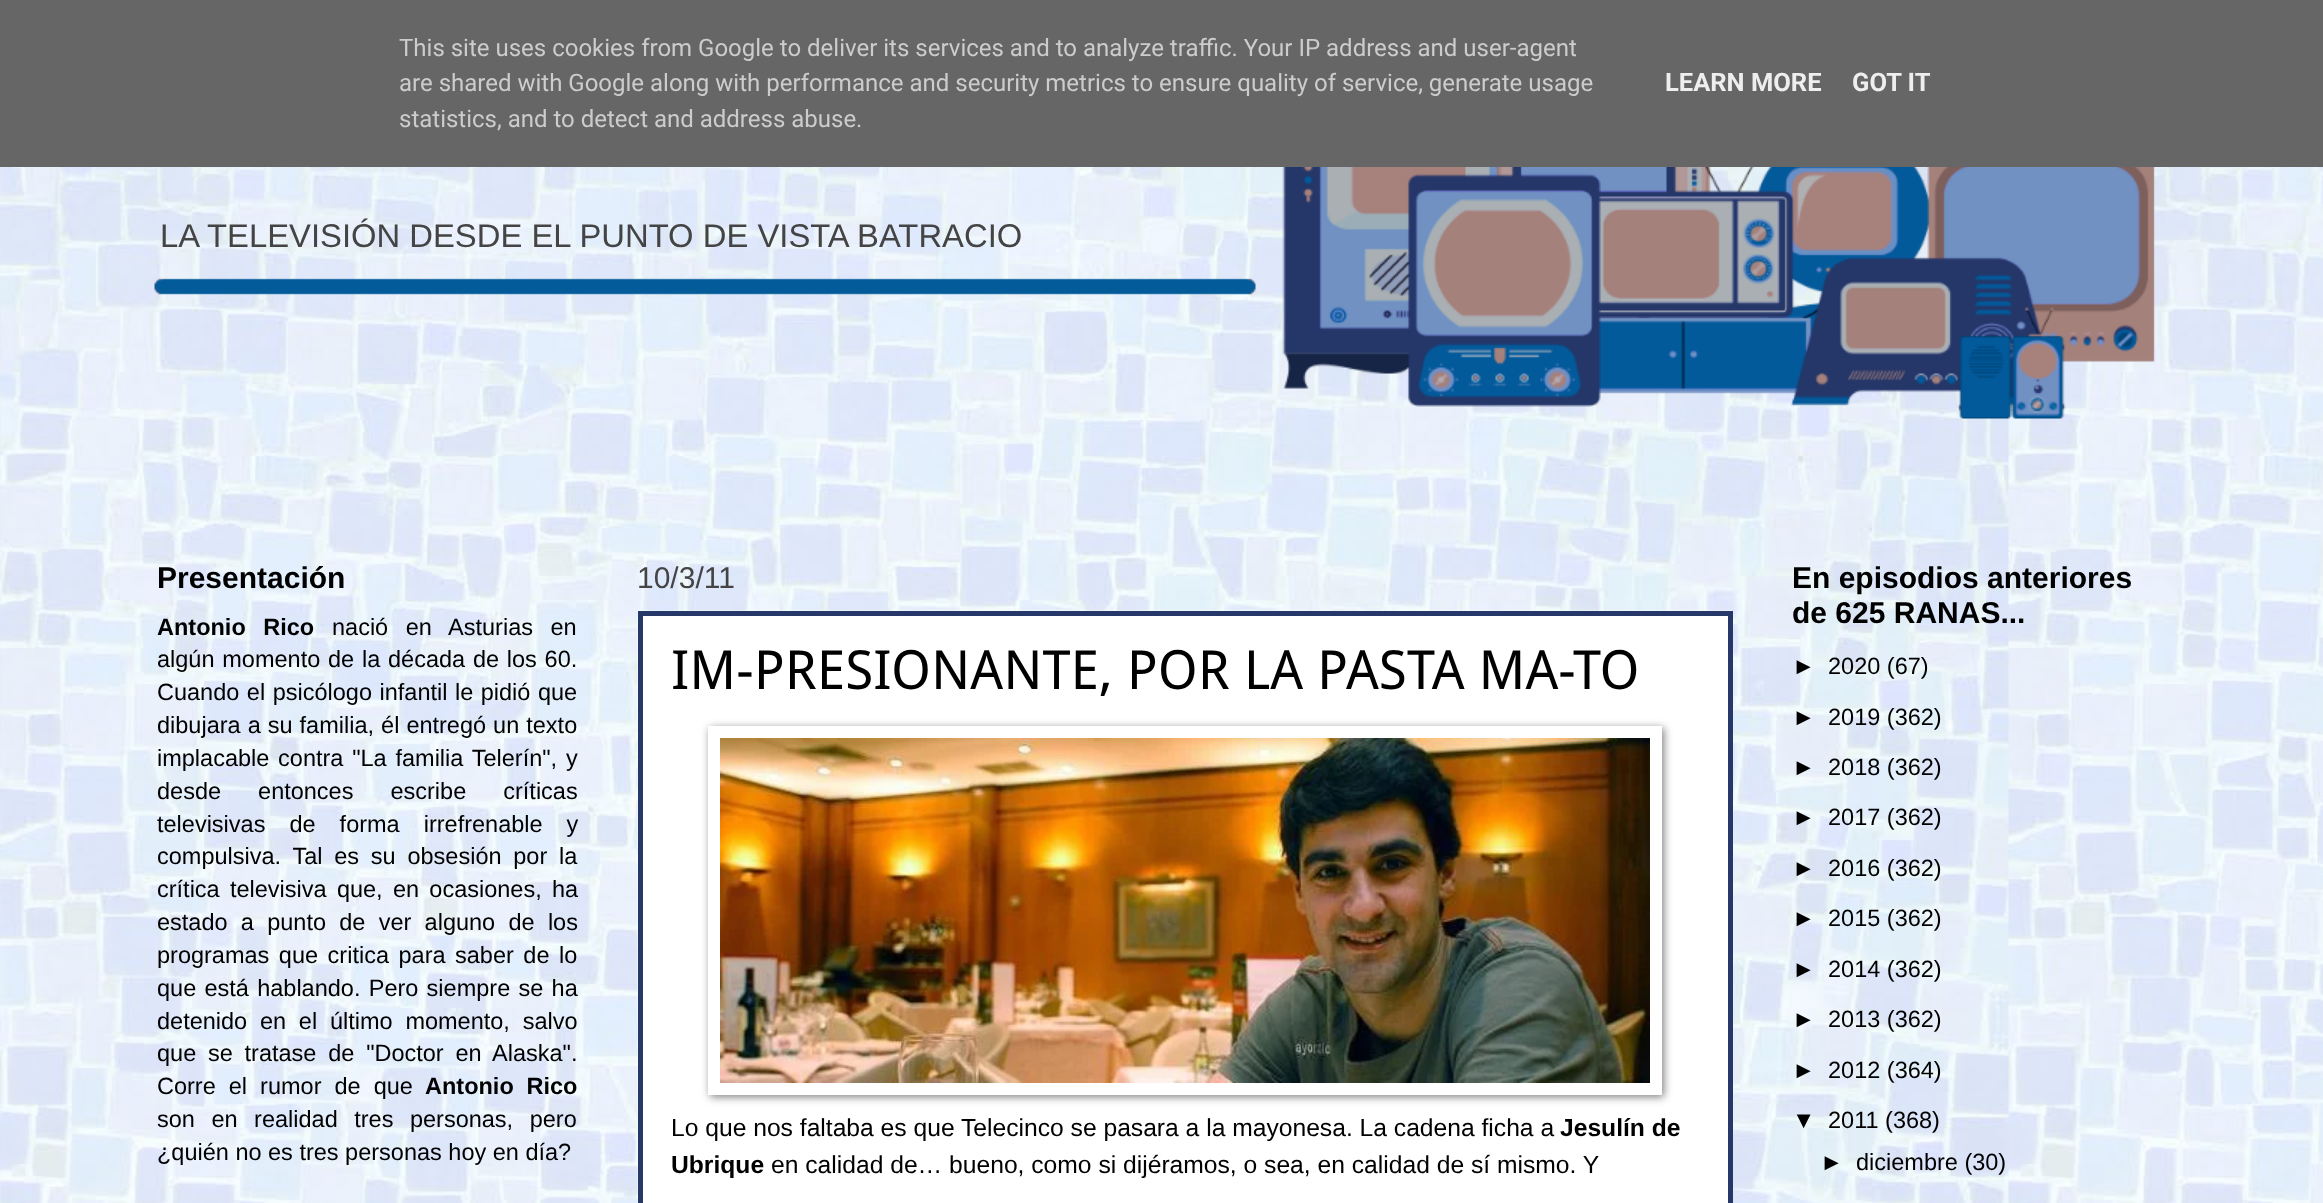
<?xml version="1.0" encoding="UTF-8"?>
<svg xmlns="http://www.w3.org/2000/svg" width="2323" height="1203">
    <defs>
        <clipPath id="clip1"><path d="M 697 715 H 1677 V 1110 H 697 Z M 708 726 H 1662 V 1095 H 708 Z" clip-rule="evenodd"/></clipPath>
        <filter id="blur1" x="-50%" y="-200%" width="200%" height="500%"><feGaussianBlur stdDeviation="4"/></filter>
    </defs>
    <rect width="100%" height="100%" fill="#FFFFFF"/>
    <image x="0" y="167" width="2323" height="1036" href="img_01.png"/>
    <rect x="0" y="0" width="2323" height="167" fill="#666666"/>
    <text font-family="Roboto" font-size="24" fill="#CCCCCC">
        <tspan x="399" y="56">This site uses cookies from Google to deliver its services and to analyze traffic. Your IP address and user-agent</tspan>
        <tspan x="399" y="91">are shared with Google along with performance and security metrics to ensure quality of service, generate usage</tspan>
        <tspan x="399" y="127">statistics, and to detect and address abuse.</tspan>
    </text>
    <text x="1665" y="91" font-family="Roboto" font-size="25.5" font-weight="700" fill="#EEEEEE">LEARN MORE</text>
    <text x="1852" y="91" font-family="Roboto" font-size="25.5" font-weight="700" fill="#EEEEEE">GOT IT</text>
    <image x="154" y="167" width="2001" height="252" href="img_02.png"/>
    <text x="160" y="247" font-family="Liberation Sans" font-size="32.8" fill="#444444">LA</text>
    <text x="207" y="247" font-family="Liberation Sans" font-size="32.8" fill="#444444">TELEVISIÓN DESDE EL PUNTO DE VISTA BATRACIO</text>
    <text x="157" y="588" font-family="Liberation Sans" font-size="30" font-weight="700" fill="#000000">Presentación</text>
    <text x="157" y="635" word-spacing="11" font-family="Liberation Sans" font-size="23.5" font-weight="700" fill="#000000">Antonio Rico</text>
    <text x="332" y="635" word-spacing="11" font-family="Liberation Sans" font-size="23.5" fill="#000000">nació en Asturias en</text>
    <text font-family="Liberation Sans" font-size="23.5" fill="#000000">
        <tspan x="157" y="667" word-spacing="1.25">algún momento de la década de los 60.</tspan>
        <tspan x="157" y="700" word-spacing="1">Cuando el psicólogo infantil le pidió que</tspan>
        <tspan x="157" y="733" word-spacing="0.5">dibujara a su familia, él entregó un texto</tspan>
        <tspan x="157" y="766" word-spacing="2.25">implacable contra "La familia Telerín", y</tspan>
        <tspan x="157" y="799" word-spacing="30.5">desde entonces escribe críticas</tspan>
        <tspan x="157" y="832" word-spacing="17.5">televisivas de forma irrefrenable y</tspan>
        <tspan x="157" y="864" word-spacing="5.25">compulsiva. Tal es su obsesión por la</tspan>
        <tspan x="157" y="897" word-spacing="3.75">crítica televisiva que, en ocasiones, ha</tspan>
        <tspan x="157" y="930" word-spacing="6.75">estado a punto de ver alguno de los</tspan>
        <tspan x="157" y="963" word-spacing="3">programas que critica para saber de lo</tspan>
        <tspan x="157" y="996" word-spacing="1.75">que está hablando. Pero siempre se ha</tspan>
        <tspan x="157" y="1029" word-spacing="6.25">detenido en el último momento, salvo</tspan>
        <tspan x="157" y="1061" word-spacing="5.25">que se tratase de "Doctor en Alaska".</tspan>
        <tspan x="157" y="1094" word-spacing="6.5">Corre el rumor de que</tspan>
    </text>
    <text x="425" y="1094" word-spacing="6.25" font-family="Liberation Sans" font-size="23.5" font-weight="700" fill="#000000">Antonio Rico</text>
    <text font-family="Liberation Sans" font-size="23.5" fill="#000000">
        <tspan x="157" y="1127" word-spacing="10">son en realidad tres personas, pero</tspan>
        <tspan x="157" y="1160">¿quién no es tres personas hoy en día?</tspan>
    </text>
    <text x="637" y="588" font-family="Liberation Sans" font-size="30" fill="#444444">10/3/11</text>
    <rect x="643" y="616" width="1085" height="587" fill="#FFFFFF"/>
    <rect x="637" y="610" width="1095" height="593" fill="#FFFFFF" fill-opacity="0.4"/>
    <rect x="640.5" y="613.5" width="1090" height="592" fill="none" stroke="#263769" stroke-width="5"/>
    <text x="671" y="689" font-family="Droid Sans" font-size="54" fill="#000000">IM-PRESIONANTE, POR LA PASTA MA-TO</text>
    <g clip-path="url(#clip1)">
        <rect x="710" y="728" width="954" height="369" fill="#000000" fill-opacity="0.5" filter="url(#blur1)"/>
    </g>
    <image x="720" y="738" width="930" height="345" href="img_03.png"/>
    <text x="671" y="1136" font-family="Liberation Sans" font-size="24.65" fill="#000000">Lo que nos faltaba es que Telecinco se pasara a la mayonesa. La cadena ficha a</text>
    <text x="1560" y="1136" font-family="Liberation Sans" font-size="24.65" font-weight="700" fill="#000000">Jesulín de</text>
    <text x="671" y="1173" font-family="Liberation Sans" font-size="24.65" font-weight="700" fill="#000000">Ubrique</text>
    <text x="771" y="1173" font-family="Liberation Sans" font-size="24.65" fill="#000000">en calidad de… bueno, como si dijéramos, o sea, en calidad de sí mismo. Y</text>
    <text font-family="Liberation Sans" font-size="30" font-weight="700" fill="#000000">
        <tspan x="1792" y="588">En episodios anteriores</tspan>
        <tspan x="1792" y="623">de 625 RANAS...</tspan>
    </text>
    <text x="1792" y="674" font-family="Liberation Sans" font-size="23.5" fill="#000000">►</text>
    <text x="1828" y="674" font-family="Liberation Sans" font-size="23.5" fill="#000000">2020 (67)</text>
    <text x="1792" y="725" font-family="Liberation Sans" font-size="23.5" fill="#000000">►</text>
    <text x="1828" y="725" font-family="Liberation Sans" font-size="23.5" fill="#000000">2019 (362)</text>
    <text x="1792" y="775" font-family="Liberation Sans" font-size="23.5" fill="#000000">►</text>
    <text x="1828" y="775" font-family="Liberation Sans" font-size="23.5" fill="#000000">2018 (362)</text>
    <text x="1792" y="825" font-family="Liberation Sans" font-size="23.5" fill="#000000">►</text>
    <text x="1828" y="825" font-family="Liberation Sans" font-size="23.5" fill="#000000">2017 (362)</text>
    <text x="1792" y="876" font-family="Liberation Sans" font-size="23.5" fill="#000000">►</text>
    <text x="1828" y="876" font-family="Liberation Sans" font-size="23.5" fill="#000000">2016 (362)</text>
    <text x="1792" y="926" font-family="Liberation Sans" font-size="23.5" fill="#000000">►</text>
    <text x="1828" y="926" font-family="Liberation Sans" font-size="23.5" fill="#000000">2015 (362)</text>
    <text x="1792" y="977" font-family="Liberation Sans" font-size="23.5" fill="#000000">►</text>
    <text x="1828" y="977" font-family="Liberation Sans" font-size="23.5" fill="#000000">2014 (362)</text>
    <text x="1792" y="1027" font-family="Liberation Sans" font-size="23.5" fill="#000000">►</text>
    <text x="1828" y="1027" font-family="Liberation Sans" font-size="23.5" fill="#000000">2013 (362)</text>
    <text x="1792" y="1078" font-family="Liberation Sans" font-size="23.5" fill="#000000">►</text>
    <text x="1828" y="1078" font-family="Liberation Sans" font-size="23.5" fill="#000000">2012 (364)</text>
    <text x="1792" y="1128" font-family="Liberation Sans" font-size="23.5" fill="#000000">▼</text>
    <text x="1828" y="1128" font-family="Liberation Sans" font-size="23.5" fill="#000000">2011 (368)</text>
    <text x="1820" y="1170" font-family="Liberation Sans" font-size="23.5" fill="#000000">►</text>
    <text x="1856" y="1170" font-family="Liberation Sans" font-size="23.5" fill="#000000">diciembre (30)</text>
</svg>
